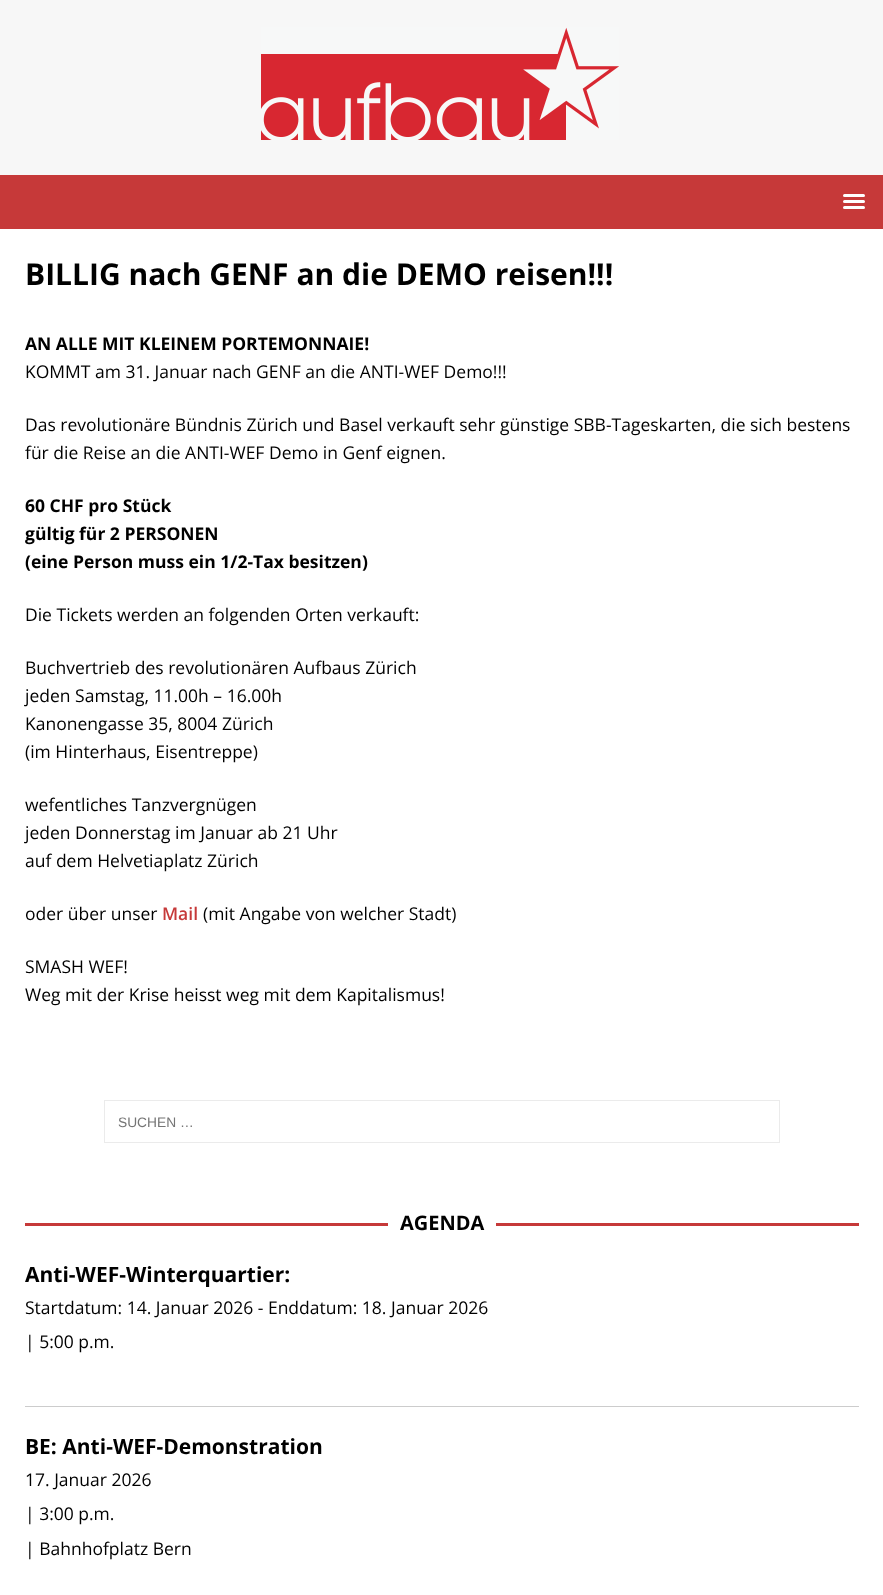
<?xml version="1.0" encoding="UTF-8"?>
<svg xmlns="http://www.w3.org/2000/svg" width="883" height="1595">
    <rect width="100%" height="100%" fill="#F7F7F7"/>
    <image x="261" y="27" width="358" height="113" href="img_01.png"/>
    <rect x="0" y="175" width="883" height="54" fill="#C63939"/>
    <rect x="843" y="194" width="22" height="3" rx="1.5" fill="#FFFFFF"/>
    <rect x="843" y="200" width="22" height="3" rx="1.5" fill="#FFFFFF"/>
    <rect x="843" y="206" width="22" height="3" rx="1.5" fill="#FFFFFF"/>
    <rect x="0" y="229" width="883" height="1366" fill="#FFFFFF"/>
    <text x="25" y="285" font-family="Open Sans" font-size="30" font-weight="700" fill="#000000">BILLIG nach GENF an die DEMO reisen!!!</text>
    <text x="25" y="350" font-family="Open Sans" font-size="17.5" font-weight="700" fill="#000000">AN ALLE MIT KLEINEM PORTEMONNAIE!</text>
    <text x="25" y="378" font-family="Open Sans" font-size="17.5" fill="#000000">KOMMT am 31. Januar nach GENF an die ANTI-WEF Demo!!!</text>
    <text font-family="Open Sans" font-size="17.5" fill="#000000">
        <tspan x="25" y="431">Das revolutionäre Bündnis Zürich und Basel verkauft sehr günstige SBB-Tageskarten, die sich bestens</tspan>
        <tspan x="25" y="459">für die Reise an die ANTI-WEF Demo in Genf eignen.</tspan>
    </text>
    <text font-family="Open Sans" font-size="17.5" font-weight="700" fill="#000000">
        <tspan x="25" y="512">60 CHF pro Stück</tspan>
        <tspan x="25" y="540">gültig für 2 PERSONEN</tspan>
        <tspan x="25" y="568">(eine Person muss ein 1/2-Tax besitzen)</tspan>
    </text>
    <text x="25" y="621" font-family="Open Sans" font-size="17.5" fill="#000000">Die Tickets werden an folgenden Orten verkauft:</text>
    <text font-family="Open Sans" font-size="17.5" fill="#000000">
        <tspan x="25" y="674">Buchvertrieb des revolutionären Aufbaus Zürich</tspan>
        <tspan x="25" y="702">jeden Samstag, 11.00h – 16.00h</tspan>
        <tspan x="25" y="730">Kanonengasse 35, 8004 Zürich</tspan>
        <tspan x="25" y="758">(im Hinterhaus, Eisentreppe)</tspan>
    </text>
    <text font-family="Open Sans" font-size="17.5" fill="#000000">
        <tspan x="25" y="811">wefentliches Tanzvergnügen</tspan>
        <tspan x="25" y="839">jeden Donnerstag im Januar ab 21 Uhr</tspan>
        <tspan x="25" y="867">auf dem Helvetiaplatz Zürich</tspan>
    </text>
    <text x="25" y="920" font-family="Open Sans" font-size="17.5" fill="#000000">oder über unser</text>
    <text x="162" y="920" font-family="Open Sans" font-size="17.5" font-weight="600" fill="#C63939">Mail</text>
    <text x="203" y="920" font-family="Open Sans" font-size="17.5" fill="#000000">(mit Angabe von welcher Stadt)</text>
    <text font-family="Open Sans" font-size="17.5" fill="#000000">
        <tspan x="25" y="973">SMASH WEF!</tspan>
        <tspan x="25" y="1001">Weg mit der Krise heisst weg mit dem Kapitalismus!</tspan>
    </text>
    <rect x="104.5" y="1100.5" width="675" height="42" fill="none" stroke="#EBEBEB"/>
    <text x="118" y="1127" font-family="Liberation Sans" font-size="13.75" fill="#757575">SUCHEN …</text>
    <rect x="25" y="1223" width="834" height="3" fill="#C63939"/>
    <rect x="388" y="1223" width="108" height="3" fill="#FFFFFF"/>
    <text x="400" y="1230" font-family="Open Sans" font-size="20" font-weight="700" fill="#000000">AGENDA</text>
    <rect x="25" y="1406" width="834" height="1" fill="#CCCCCC"/>
    <text x="25" y="1282" font-family="Open Sans" font-size="21" font-weight="700" fill="#000000">Anti-WEF-Winterquartier:</text>
    <text font-family="Open Sans" font-size="17.5" fill="#000000">
        <tspan x="25" y="1314">Startdatum: 14. Januar 2026 - Enddatum: 18. Januar 2026</tspan>
        <tspan x="25" y="1348">| 5:00 p.m.</tspan>
    </text>
    <text x="25" y="1454" font-family="Open Sans" font-size="21" font-weight="700" fill="#000000">BE: Anti-WEF-Demonstration</text>
    <text font-family="Open Sans" font-size="17.5" fill="#000000">
        <tspan x="25" y="1486">17. Januar 2026</tspan>
        <tspan x="25" y="1520">| 3:00 p.m.</tspan>
    </text>
    <text x="25" y="1555" font-family="Open Sans" font-size="17.5" fill="#000000">| Bahnhofplatz Bern</text>
</svg>
